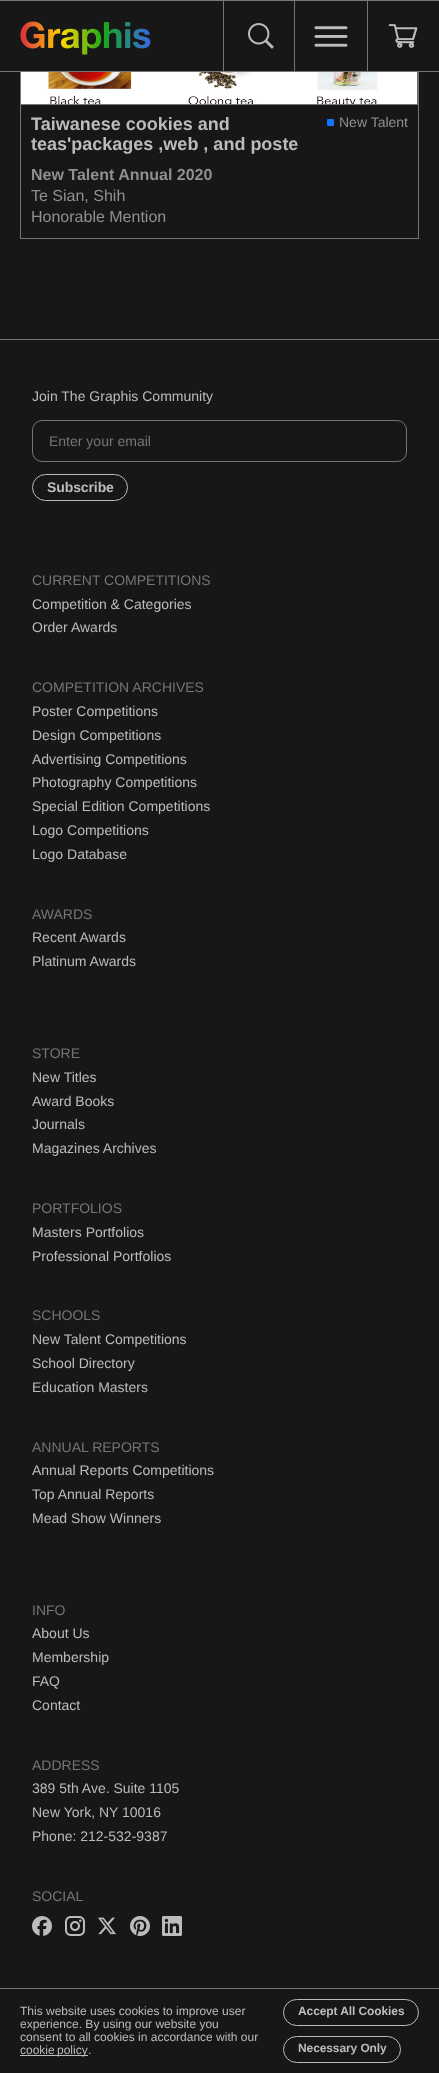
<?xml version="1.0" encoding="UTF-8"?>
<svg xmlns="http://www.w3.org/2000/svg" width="439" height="2073">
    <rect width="100%" height="100%" fill="#171717"/>
    <rect x="20.5" y="-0.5" width="398" height="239" fill="none" stroke="#757575"/>
    <rect x="20" y="1" width="399" height="70" fill="#171717"/>
    <rect x="0" y="0" width="439" height="1" fill="#757575"/>
    <rect x="0" y="71" width="439" height="1" fill="#757575"/>
    <image x="20" y="21" width="131" height="34" href="img_01.png"/>
    <rect x="294" y="1" width="1" height="70" fill="#757575"/>
    <rect x="223" y="1" width="1" height="70" fill="#757575"/>
    <image x="248" y="23" width="26" height="26" href="img_02.png"/>
    <image x="314" y="26" width="34" height="21" href="img_03.png"/>
    <rect x="367" y="1" width="1" height="70" fill="#757575"/>
    <image x="388" y="24" width="30" height="24" href="img_04.png"/>
    <image x="21" y="72" width="397" height="32" href="img_05.png"/>
    <rect x="21" y="104" width="397" height="1" fill="#757575"/>
    <text font-family="Liberation Sans" font-size="18" font-weight="700" fill="#BCBCBC">
        <tspan x="31" y="130">Taiwanese cookies and</tspan>
        <tspan x="31" y="150">teas'packages ,web , and poste</tspan>
    </text>
    <rect x="327" y="119" width="7" height="7" rx="1" fill="#1472FF"/>
    <text x="339" y="127" font-family="Liberation Sans" font-size="14" fill="#909090">New Talent</text>
    <text x="31" y="180" font-family="Liberation Sans" font-size="16" font-weight="700" fill="#909090">New Talent Annual 2020</text>
    <text font-family="Liberation Sans" font-size="16" fill="#909090">
        <tspan x="31" y="201">Te Sian, Shih</tspan>
        <tspan x="31" y="222">Honorable Mention</tspan>
    </text>
    <rect x="0" y="339" width="439" height="1" fill="#757575"/>
    <text x="32" y="401" font-family="Liberation Sans" font-size="14" fill="#BCBCBC">Join The Graphis Community</text>
    <rect x="32.5" y="420.5" width="374" height="41" rx="9.5" fill="none" stroke="#757575"/>
    <text x="49" y="446" font-family="Liberation Sans" font-size="14" fill="#757575">Enter your email</text>
    <rect x="32.5" y="474.5" width="95" height="26" rx="13" fill="none" stroke="#BCBCBC"/>
    <text x="47" y="492" font-family="Liberation Sans" font-size="14" font-weight="700" letter-spacing="-0.1" fill="#BCBCBC">Subscribe</text>
    <text x="32" y="585" font-family="Liberation Sans" font-size="14" fill="#757575">CURRENT COMPETITIONS</text>
    <text font-family="Liberation Sans" font-size="14" fill="#BCBCBC">
        <tspan x="32" y="609">Competition &amp; Categories</tspan>
        <tspan x="32" y="632">Order Awards</tspan>
    </text>
    <text x="32" y="692" font-family="Liberation Sans" font-size="14" fill="#757575">COMPETITION ARCHIVES</text>
    <text font-family="Liberation Sans" font-size="14" fill="#BCBCBC">
        <tspan x="32" y="716">Poster Competitions</tspan>
        <tspan x="32" y="740">Design Competitions</tspan>
        <tspan x="32" y="764">Advertising Competitions</tspan>
        <tspan x="32" y="787">Photography Competitions</tspan>
        <tspan x="32" y="811">Special Edition Competitions</tspan>
        <tspan x="32" y="835">Logo Competitions</tspan>
        <tspan x="32" y="859">Logo Database</tspan>
    </text>
    <text x="32" y="919" font-family="Liberation Sans" font-size="14" fill="#757575">AWARDS</text>
    <text font-family="Liberation Sans" font-size="14" fill="#BCBCBC">
        <tspan x="32" y="942">Recent Awards</tspan>
        <tspan x="32" y="966">Platinum Awards</tspan>
    </text>
    <text x="32" y="1058" font-family="Liberation Sans" font-size="14" fill="#757575">STORE</text>
    <text font-family="Liberation Sans" font-size="14" fill="#BCBCBC">
        <tspan x="32" y="1082">New Titles</tspan>
        <tspan x="32" y="1106">Award Books</tspan>
        <tspan x="32" y="1129">Journals</tspan>
        <tspan x="32" y="1153">Magazines Archives</tspan>
    </text>
    <text x="32" y="1213" font-family="Liberation Sans" font-size="14" fill="#757575">PORTFOLIOS</text>
    <text font-family="Liberation Sans" font-size="14" fill="#BCBCBC">
        <tspan x="32" y="1237">Masters Portfolios</tspan>
        <tspan x="32" y="1261">Professional Portfolios</tspan>
    </text>
    <text x="32" y="1320" font-family="Liberation Sans" font-size="14" fill="#757575">SCHOOLS</text>
    <text font-family="Liberation Sans" font-size="14" fill="#BCBCBC">
        <tspan x="32" y="1344">New Talent Competitions</tspan>
        <tspan x="32" y="1368">School Directory</tspan>
        <tspan x="32" y="1392">Education Masters</tspan>
    </text>
    <text x="32" y="1452" font-family="Liberation Sans" font-size="14" fill="#757575">ANNUAL REPORTS</text>
    <text font-family="Liberation Sans" font-size="14" fill="#BCBCBC">
        <tspan x="32" y="1475">Annual Reports Competitions</tspan>
        <tspan x="32" y="1499">Top Annual Reports</tspan>
        <tspan x="32" y="1523">Mead Show Winners</tspan>
    </text>
    <text x="32" y="1615" font-family="Liberation Sans" font-size="14" fill="#757575">INFO</text>
    <text font-family="Liberation Sans" font-size="14" fill="#BCBCBC">
        <tspan x="32" y="1638">About Us</tspan>
        <tspan x="32" y="1662">Membership</tspan>
        <tspan x="32" y="1686">FAQ</tspan>
        <tspan x="32" y="1710">Contact</tspan>
    </text>
    <text x="32" y="1770" font-family="Liberation Sans" font-size="14" fill="#757575">ADDRESS</text>
    <text font-family="Liberation Sans" font-size="14" fill="#BCBCBC">
        <tspan x="32" y="1793">389 5th Ave. Suite 1105</tspan>
        <tspan x="32" y="1817">New York, NY 10016</tspan>
        <tspan x="32" y="1841">Phone: 212-532-9387</tspan>
    </text>
    <text x="32" y="1901" font-family="Liberation Sans" font-size="14" fill="#757575">SOCIAL</text>
    <image x="32" y="1916" width="20" height="20" href="img_06.png"/>
    <image x="65" y="1916" width="20" height="20" href="img_07.png"/>
    <image x="98" y="1917" width="18" height="18" href="img_08.png"/>
    <image x="130" y="1916" width="20" height="20" href="img_09.png"/>
    <image x="162" y="1916" width="20" height="20" href="img_10.png"/>
    <rect x="0" y="1988" width="439" height="1" fill="#757575"/>
    <text font-family="Liberation Sans" font-size="12" fill="#BCBCBC">
        <tspan x="20" y="2015">This website uses cookies to improve user</tspan>
        <tspan x="20" y="2028">experience. By using our website you</tspan>
        <tspan x="20" y="2041">consent to all cookies in accordance with our</tspan>
    </text>
    <rect x="20" y="2055" width="68" height="1" fill="#BCBCBC"/>
    <text x="20" y="2054" word-spacing="-1" font-family="Liberation Sans" font-size="12" fill="#BCBCBC">cookie policy</text>
    <text x="88" y="2054" font-family="Liberation Sans" font-size="12" fill="#BCBCBC">.</text>
    <rect x="283.5" y="1999.5" width="135" height="26" rx="13" fill="none" stroke="#BCBCBC"/>
    <text x="298" y="2015" font-family="Liberation Sans" font-size="12" font-weight="700" letter-spacing="-0.1" fill="#BCBCBC">Accept All Cookies</text>
    <rect x="283.5" y="2036.5" width="117" height="26" rx="13" fill="none" stroke="#BCBCBC"/>
    <text x="298" y="2052" font-family="Liberation Sans" font-size="12" font-weight="700" letter-spacing="-0.1" fill="#BCBCBC">Necessary Only</text>
</svg>
